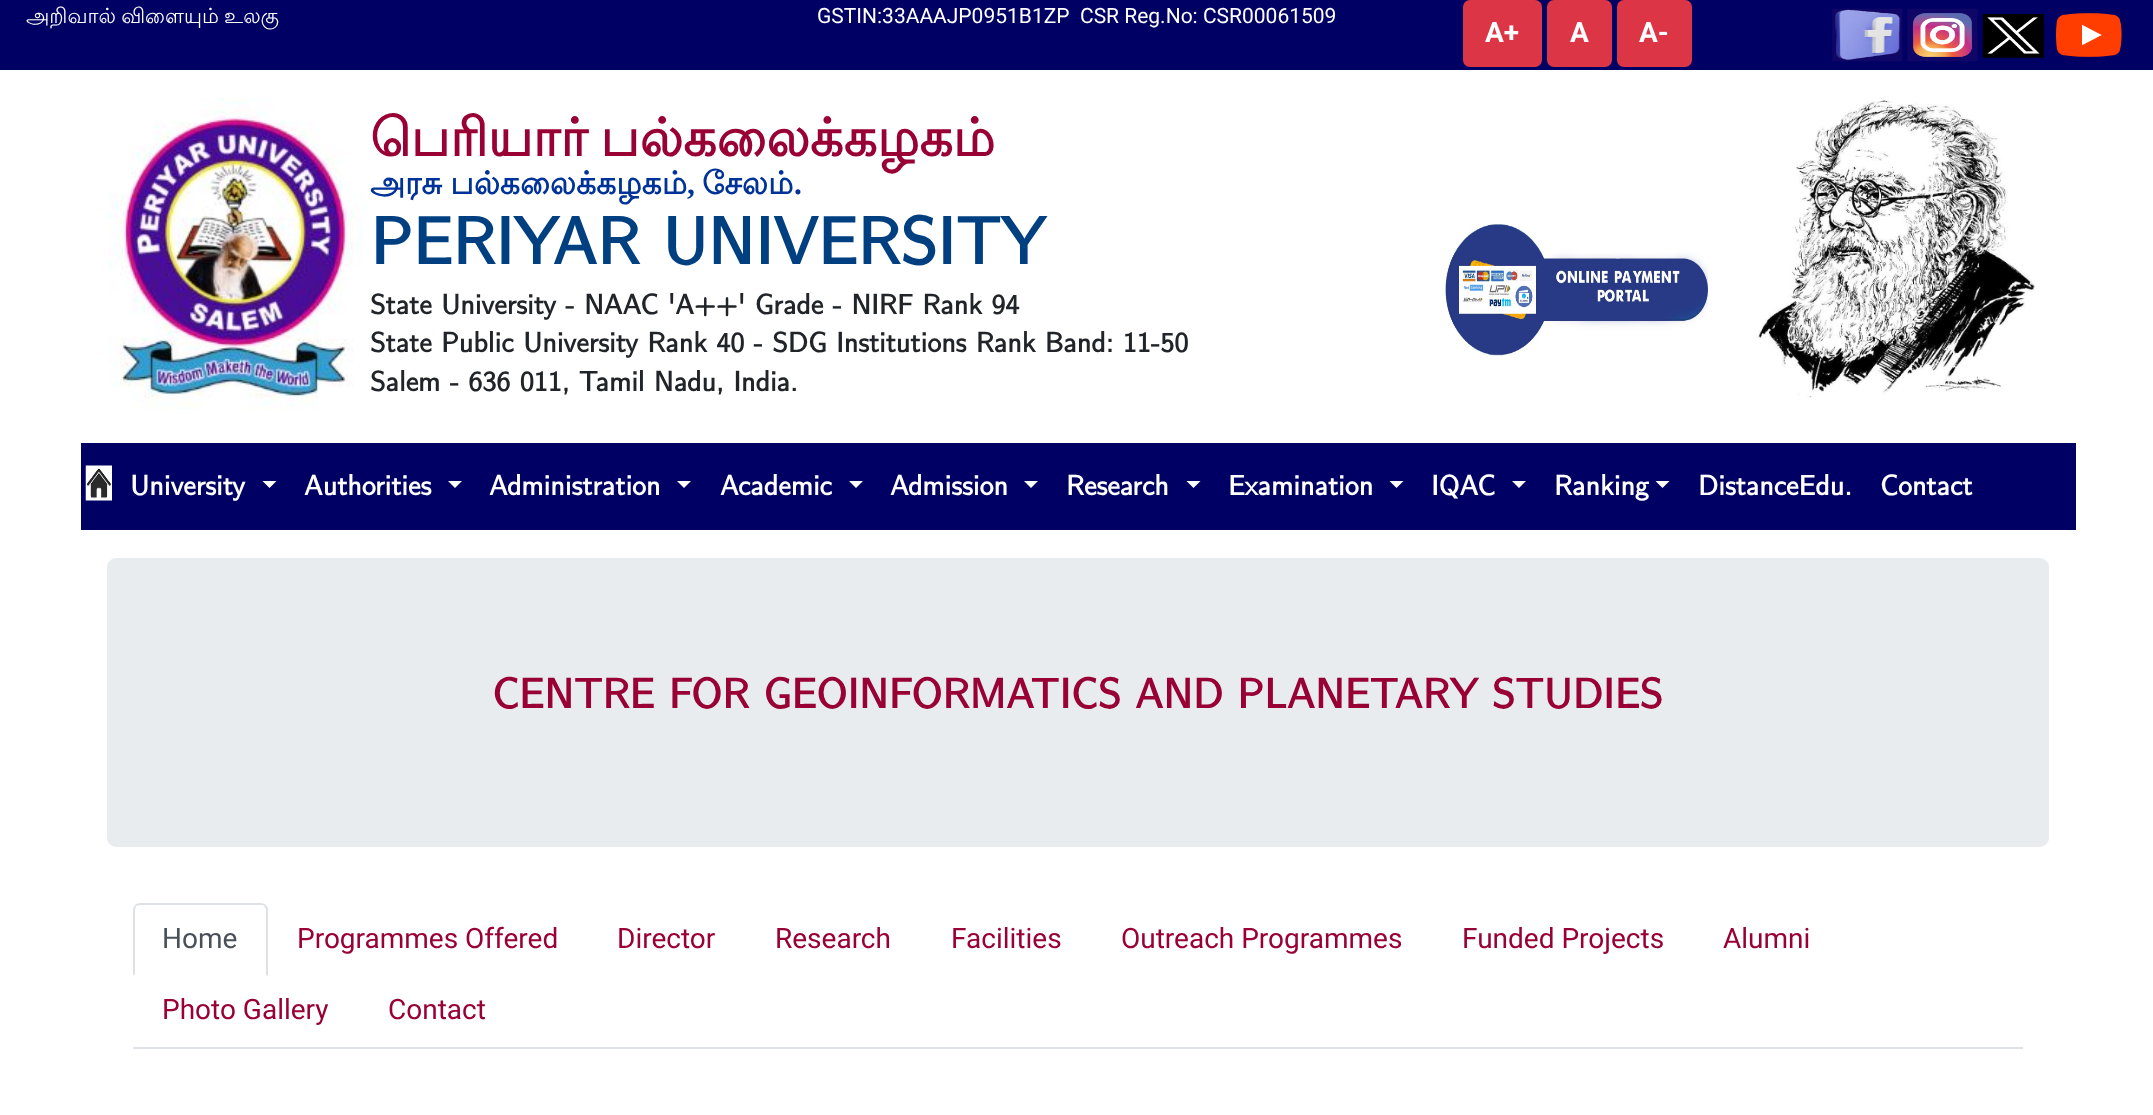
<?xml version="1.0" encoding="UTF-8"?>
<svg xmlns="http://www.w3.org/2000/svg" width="2153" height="1115">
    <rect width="100%" height="100%" fill="#FFFFFF"/>
    <rect x="0" y="0" width="2153" height="70" fill="#000064"/>
    <text x="26" y="23" word-spacing="-1" font-family="Lohit Tamil" font-size="21" fill="#FFFFFF">அறிவால் விளையும் உலகு</text>
    <text x="817" y="23" font-family="Roboto" font-size="21" fill="#FFFFFF" xml:space="preserve">GSTIN:33AAAJP0951B1ZP  CSR Reg.No: CSR00061509</text>
    <rect x="1464" y="1" width="77" height="65" rx="6" fill="#DC3545" stroke="#DC3545" stroke-width="2"/>
    <text x="1485" y="42" font-family="Roboto" font-size="28" font-weight="700" fill="#FFFFFF">A+</text>
    <rect x="1548" y="1" width="63" height="65" rx="6" fill="#DC3545" stroke="#DC3545" stroke-width="2"/>
    <text x="1570" y="42" font-family="Roboto" font-size="28" font-weight="700" fill="#FFFFFF">A</text>
    <rect x="1618" y="1" width="73" height="65" rx="6" fill="#DC3545" stroke="#DC3545" stroke-width="2"/>
    <text x="1639" y="42" font-family="Roboto" font-size="28" font-weight="700" fill="#FFFFFF">A-</text>
    <image x="1832" y="8" width="71" height="54" href="img_01.png"/>
    <image x="1907" y="8" width="71" height="54" href="img_02.png"/>
    <image x="1982" y="14" width="62" height="44" href="img_03.png"/>
    <image x="2056" y="13" width="66" height="44" href="img_04.png"/>
    <image x="108" y="98" width="258" height="312" href="img_05.png"/>
    <text x="370" y="156" word-spacing="-3" font-family="Lohit Tamil" font-size="52.5" font-weight="700" fill="#990033">பெரியார் பல்கலைக்கழகம்</text>
    <text x="370" y="194" word-spacing="-1" font-family="Lohit Tamil" font-size="31.5" font-weight="700" fill="#003399">அரசு பல்கலைக்கழகம்</text>
    <text x="687" y="194" font-family="Liberation Serif" font-size="31.5" font-weight="700" fill="#003399">,</text>
    <text x="702" y="194" font-family="Lohit Tamil" font-size="31.5" font-weight="700" fill="#003399">சேலம்</text>
    <text x="794" y="194" font-family="Liberation Serif" font-size="31.5" font-weight="700" fill="#003399">.</text>
    <text x="370" y="264" font-family="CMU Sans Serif" font-size="66.5" font-weight="700" fill="#004080">PERIYAR UNIVERSITY</text>
    <text font-family="CMU Sans Serif" font-size="28" font-weight="700" fill="#212529">
        <tspan x="370" y="314">State University - NAAC 'A++' Grade - NIRF Rank 94</tspan>
        <tspan x="370" y="352">State Public University Rank 40 - SDG Institutions Rank Band: 11-50</tspan>
        <tspan x="370" y="391">Salem - 636 011, Tamil Nadu, India.</tspan>
    </text>
    <image x="1445" y="224" width="263" height="132" href="img_06.png"/>
    <image x="1758" y="98" width="278" height="300" href="img_07.png"/>
    <rect x="81" y="443" width="1995" height="87" fill="#000064"/>
    <image x="85" y="465" width="27" height="36" href="img_08.png"/>
    <text x="130" y="495" font-family="CMU Sans Serif" font-size="28" font-weight="700" fill="#FFFFFF">University</text>
    <path d="M 262.5 481 H 276.5 L 269.5 488 Z" fill="#FFFFFF"/>
    <text x="304" y="495" font-family="CMU Sans Serif" font-size="28" font-weight="700" fill="#FFFFFF">Authorities</text>
    <path d="M 448 481 H 462 L 455 488 Z" fill="#FFFFFF"/>
    <text x="489" y="495" font-family="CMU Sans Serif" font-size="28" font-weight="700" fill="#FFFFFF">Administration</text>
    <path d="M 677 481 H 691 L 684 488 Z" fill="#FFFFFF"/>
    <text x="720" y="495" font-family="CMU Sans Serif" font-size="28" font-weight="700" fill="#FFFFFF">Academic</text>
    <path d="M 849 481 H 863 L 856 488 Z" fill="#FFFFFF"/>
    <text x="890" y="495" font-family="CMU Sans Serif" font-size="28" font-weight="700" fill="#FFFFFF">Admission</text>
    <path d="M 1024 481 H 1038 L 1031 488 Z" fill="#FFFFFF"/>
    <text x="1066" y="495" font-family="CMU Sans Serif" font-size="28" font-weight="700" fill="#FFFFFF">Research</text>
    <path d="M 1186.5 481 H 1200.5 L 1193.5 488 Z" fill="#FFFFFF"/>
    <text x="1228" y="495" font-family="CMU Sans Serif" font-size="28" font-weight="700" fill="#FFFFFF">Examination</text>
    <path d="M 1389.5 481 H 1403.5 L 1396.5 488 Z" fill="#FFFFFF"/>
    <text x="1431" y="495" font-family="CMU Sans Serif" font-size="28" font-weight="700" fill="#FFFFFF">IQAC</text>
    <path d="M 1512 481 H 1526 L 1519 488 Z" fill="#FFFFFF"/>
    <text x="1554" y="495" font-family="CMU Sans Serif" font-size="28" font-weight="700" fill="#FFFFFF">Ranking</text>
    <path d="M 1655.5 481 H 1669.5 L 1662.5 488 Z" fill="#FFFFFF"/>
    <text x="1698" y="495" font-family="CMU Sans Serif" font-size="28" font-weight="700" fill="#FFFFFF">DistanceEdu.</text>
    <text x="1880" y="495" font-family="CMU Sans Serif" font-size="28" font-weight="700" fill="#FFFFFF">Contact</text>
    <rect x="107" y="558" width="1942" height="289" rx="9" fill="#E9ECEF"/>
    <text x="492" y="708" font-family="CMU Sans Serif" font-size="42" font-weight="700" fill="#990033">CENTRE FOR GEOINFORMATICS AND PLANETARY STUDIES</text>
    <rect x="133" y="1047" width="1890" height="2" fill="#DEE2E6"/>
    <path d="M 140 903 C 138 903 136 904 135 905 L 136 906 C 137 906 138 905 140 905 H 261 C 262 905 264 905 264 906 L 266 905 C 265 904 263 903 261 903 Z" fill="#DEE2E6"/>
    <path d="M 268 976 L 266 975 V 909 L 264 906 L 266 905 L 268 908 Z" fill="#DEE2E6"/>
    <path d="M 267 976 H 134 L 135 974 V 975 H 266 Z" fill="#FFFFFF"/>
    <path d="M 133 910 V 976 L 135 974 V 910 C 135 908 136 907 136 906 L 135 905 C 134 906 133 908 133 910 Z" fill="#DEE2E6"/>
    <text x="162" y="948" font-family="Roboto" font-size="28" fill="#495057">Home</text>
    <text x="297" y="948" font-family="Roboto" font-size="28" fill="#990033">Programmes Offered</text>
    <text x="617" y="948" font-family="Roboto" font-size="28" fill="#990033">Director</text>
    <text x="775" y="948" font-family="Roboto" font-size="28" fill="#990033">Research</text>
    <text x="951" y="948" font-family="Roboto" font-size="28" fill="#990033">Facilities</text>
    <text x="1121" y="948" font-family="Roboto" font-size="28" fill="#990033">Outreach Programmes</text>
    <text x="1462" y="948" font-family="Roboto" font-size="28" fill="#990033">Funded Projects</text>
    <text x="1723" y="948" font-family="Roboto" font-size="28" fill="#990033">Alumni</text>
    <text x="162" y="1019" font-family="Roboto" font-size="28" fill="#990033">Photo Gallery</text>
    <text x="388" y="1019" font-family="Roboto" font-size="28" fill="#990033">Contact</text>
</svg>
